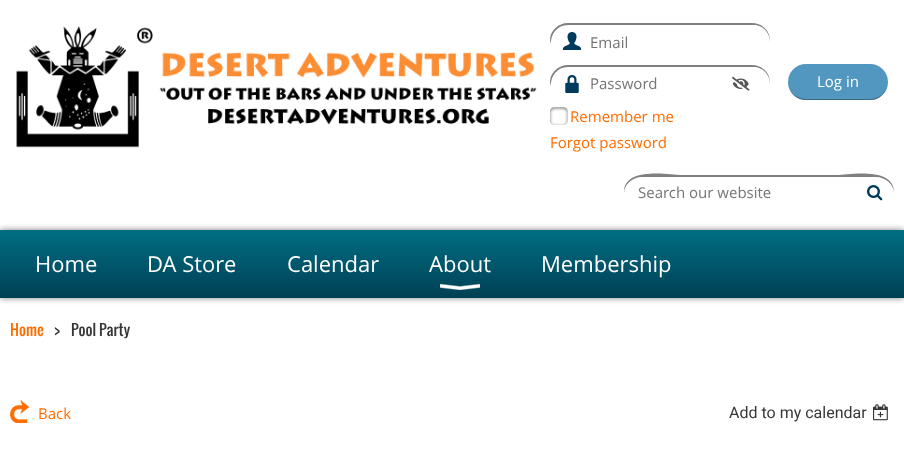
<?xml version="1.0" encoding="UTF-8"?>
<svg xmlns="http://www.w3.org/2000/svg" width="904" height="453">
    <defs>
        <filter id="blur1" x="-50%" y="-200%" width="200%" height="500%"><feGaussianBlur stdDeviation="3"/></filter>
        <linearGradient id="g1" gradientUnits="userSpaceOnUse" x1="452" y1="230" x2="452" y2="298"><stop offset="0" stop-color="#006E83"/><stop offset="1" stop-color="#004054"/></linearGradient>
    </defs>
    <rect width="100%" height="100%" fill="#FFFFFF"/>
    <image x="16" y="26" width="521" height="122" href="img_01.png"/>
    <image x="563" y="32" width="18" height="18" href="img_02.png"/>
    <path d="M 568 25 H 756 C 765 27 770 34 770 42 V 40 C 770 31 762 23 752 23 H 568 C 558 23 550 31 550 40 L 551 45 C 550 36 556 25 568 25 Z" fill="#808080"/>
    <text x="590" y="48" font-family="Open Sans" font-size="15" fill="#757575">Email</text>
    <image x="565" y="75" width="14" height="18" href="img_03.png"/>
    <path d="M 568 67 H 756 C 765 69 770 76 770 84 V 82 C 770 73 762 65 752 65 H 568 C 558 65 550 73 550 82 L 551 87 C 550 78 556 67 568 67 Z" fill="#808080"/>
    <text x="590" y="89" font-family="Open Sans" font-size="15" fill="#757575">Password</text>
    <image x="732" y="76" width="18" height="15" href="img_04.png"/>
    <rect x="788" y="64" width="100" height="36" rx="18" fill="#5297BF"/>
    <path d="M 788 82 C 788 90 794 98 802 100 H 817 H 874 C 882 98 888 90 888 82 C 888 91 880 99 870 99 H 806 C 796 99 788 91 788 82 Z" fill="#000000" fill-opacity="0.3"/>
    <text x="817" y="87" font-family="Open Sans" font-size="15" fill="#FFFFFF">Log in</text>
    <image x="550" y="107" width="18" height="18" href="img_05.png"/>
    <text x="570" y="122" font-family="Open Sans" font-size="15" fill="#FF6C00">Remember me</text>
    <text x="550" y="148" font-family="Open Sans" font-size="15" fill="#FF6C00">Forgot password</text>
    <path d="M 642 177 H 876 C 886 177 894 185 894 193 C 895 166 848 175 837 175 H 681 C 670 175 623 166 624 193 C 624 185 632 177 642 177 Z" fill="#808080"/>
    <text x="638" y="198" font-family="Open Sans" font-size="15" fill="#757575">Search our website</text>
    <image x="867" y="185" width="16" height="16" href="img_06.png"/>
    <rect x="0" y="230" width="904" height="68" fill="#000000" fill-opacity="0.5" filter="url(#blur1)"/>
    <rect x="0" y="230" width="904" height="68" fill="url(#g1)"/>
    <text x="35" y="272" font-family="Open Sans" font-size="22" fill="#FFFFFF">Home</text>
    <text x="147" y="272" font-family="Open Sans" font-size="22" fill="#FFFFFF">DA Store</text>
    <text x="287" y="272" font-family="Open Sans" font-size="22" fill="#FFFFFF">Calendar</text>
    <text x="429" y="272" font-family="Open Sans" font-size="22" fill="#FFFFFF">About</text>
    <image x="440" y="284" width="40" height="6" href="img_07.png"/>
    <text x="541" y="272" font-family="Open Sans" font-size="22" fill="#FFFFFF">Membership</text>
    <text x="10" y="336" font-family="Oswald" font-size="15" fill="#FF6C00">Home</text>
    <text x="54" y="336" font-family="Oswald" font-size="15" fill="#373737">&gt;</text>
    <text x="71" y="336" font-family="Oswald" font-size="15" fill="#373737">Pool Party</text>
    <image x="10" y="400" width="19" height="23" href="img_08.png"/>
    <text x="38" y="419" font-family="Open Sans" font-size="15" fill="#FF6C00">Back</text>
    <text x="729" y="418" font-family="Roboto" font-size="16" fill="#373737">Add to my calendar</text>
    <image x="873" y="404" width="15" height="17" href="img_09.png"/>
</svg>
